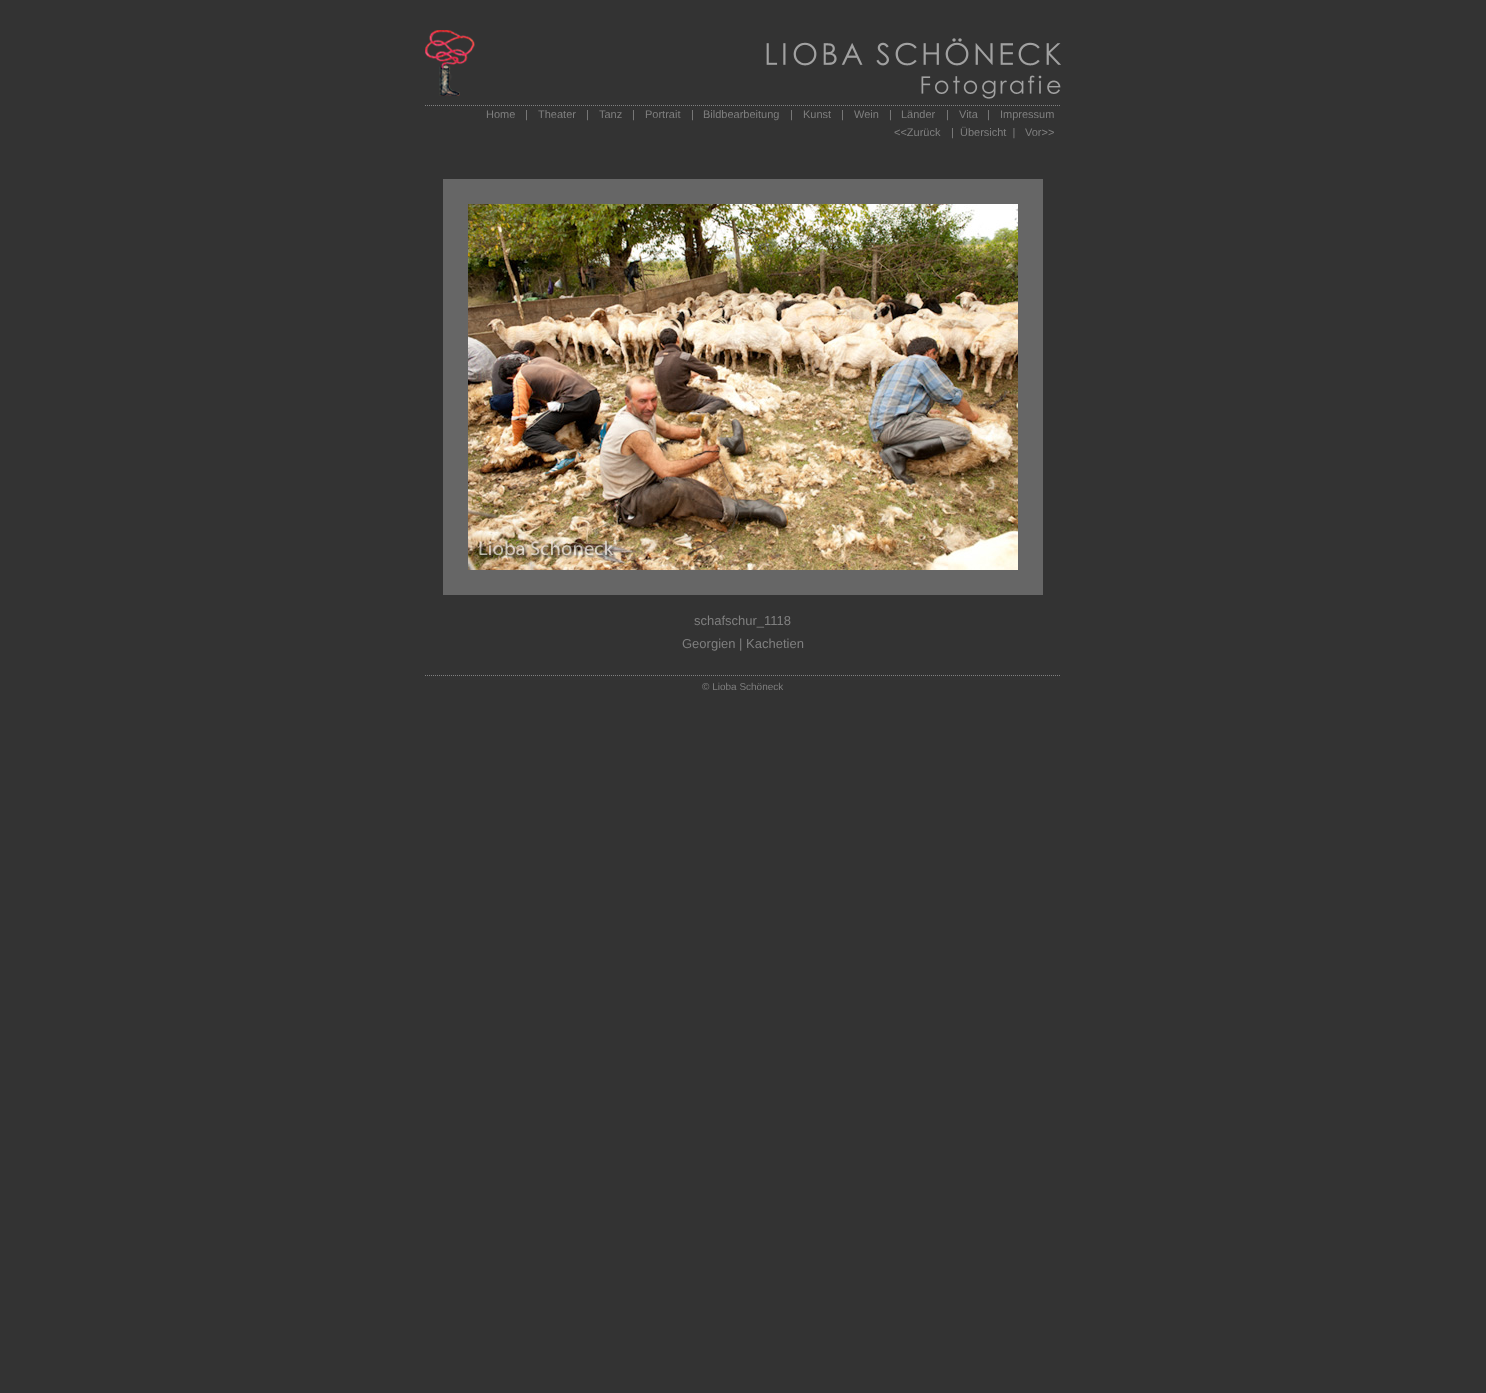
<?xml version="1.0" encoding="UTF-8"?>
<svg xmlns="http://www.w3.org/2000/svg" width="1486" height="1393">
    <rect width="100%" height="100%" fill="#333333"/>
    <image x="425" y="30" width="636" height="69" href="img_01.png"/>
    <path d="M 425 105.5 H 1061" fill="none" stroke="#7F7F7F" stroke-dasharray="1 1"/>
    <text x="486" y="118" font-family="Liberation Sans" font-size="11" fill="#7F7F7F">Home</text>
    <text x="525" y="118" font-family="Liberation Sans" font-size="11" fill="#7F7F7F">|</text>
    <text x="538" y="118" font-family="Liberation Sans" font-size="11" fill="#7F7F7F">Theater</text>
    <text x="586" y="118" font-family="Liberation Sans" font-size="11" fill="#7F7F7F">|</text>
    <text x="599" y="118" font-family="Liberation Sans" font-size="11" fill="#7F7F7F">Tanz</text>
    <text x="632" y="118" font-family="Liberation Sans" font-size="11" fill="#7F7F7F">|</text>
    <text x="645" y="118" font-family="Liberation Sans" font-size="11" fill="#7F7F7F">Portrait</text>
    <text x="691" y="118" font-family="Liberation Sans" font-size="11" fill="#7F7F7F">|</text>
    <text x="703" y="118" font-family="Liberation Sans" font-size="11" fill="#7F7F7F">Bildbearbeitung</text>
    <text x="790" y="118" font-family="Liberation Sans" font-size="11" fill="#7F7F7F">|</text>
    <text x="803" y="118" font-family="Liberation Sans" font-size="11" fill="#7F7F7F">Kunst</text>
    <text x="841" y="118" font-family="Liberation Sans" font-size="11" fill="#7F7F7F">|</text>
    <text x="854" y="118" font-family="Liberation Sans" font-size="11" fill="#7F7F7F">Wein</text>
    <text x="889" y="118" font-family="Liberation Sans" font-size="11" fill="#7F7F7F">|</text>
    <text x="901" y="118" font-family="Liberation Sans" font-size="11" fill="#7F7F7F">Länder</text>
    <text x="946" y="118" font-family="Liberation Sans" font-size="11" fill="#7F7F7F">|</text>
    <text x="959" y="118" font-family="Liberation Sans" font-size="11" fill="#7F7F7F">Vita</text>
    <text x="987" y="118" font-family="Liberation Sans" font-size="11" fill="#7F7F7F">|</text>
    <text x="1000" y="118" font-family="Liberation Sans" font-size="11" fill="#7F7F7F">Impressum</text>
    <text x="894" y="136" font-family="Liberation Sans" font-size="11" fill="#7F7F7F">&lt;&lt;Zurück</text>
    <text x="951" y="136" font-family="Liberation Sans" font-size="11" fill="#7F7F7F" xml:space="preserve">|  Übersicht  |</text>
    <text x="1025" y="136" font-family="Liberation Sans" font-size="11" fill="#7F7F7F">Vor&gt;&gt;</text>
    <rect x="443" y="179" width="600" height="416" fill="#666666"/>
    <image x="468" y="204" width="550" height="366" href="img_02.png"/>
    <text x="694" y="625" font-family="Liberation Sans" font-size="13" fill="#7F7F7F">schafschur_1118</text>
    <text x="682" y="648" font-family="Liberation Sans" font-size="13" fill="#7F7F7F">Georgien | Kachetien</text>
    <path d="M 425 675.5 H 1061" fill="none" stroke="#7F7F7F" stroke-dasharray="1 1"/>
    <text x="702" y="690" font-family="Liberation Sans" font-size="10" fill="#7F7F7F">© Lioba Schöneck</text>
</svg>
